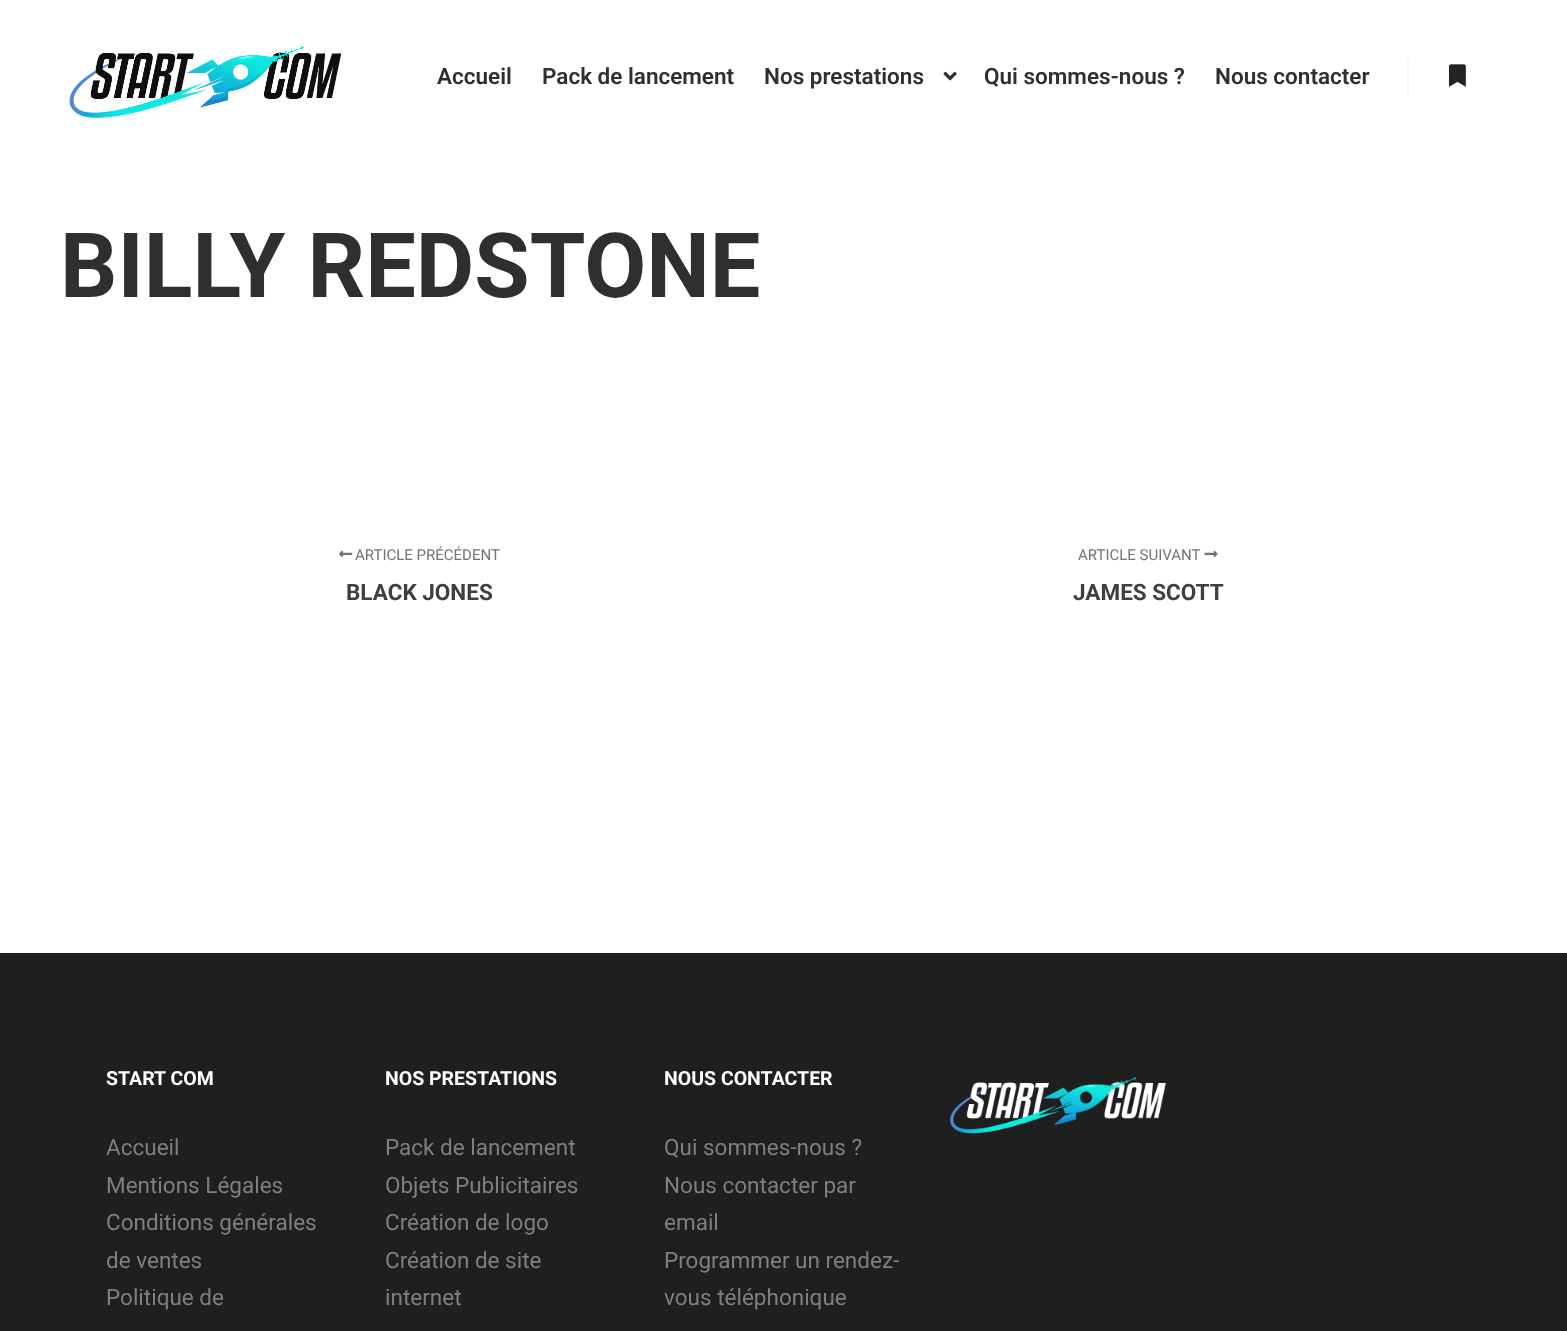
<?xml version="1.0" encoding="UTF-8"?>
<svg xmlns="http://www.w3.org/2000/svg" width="1567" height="1331">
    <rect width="100%" height="100%" fill="#FFFFFF"/>
    <image x="69" y="46" width="273" height="72" href="img_01.png"/>
    <text x="437" y="84" font-family="Roboto" font-size="22.5" font-weight="600" fill="#2F2F2F">Accueil</text>
    <text x="542" y="84" font-family="Roboto" font-size="22.5" font-weight="600" fill="#2F2F2F">Pack de lancement</text>
    <text x="764" y="84" font-family="Roboto" font-size="22.5" font-weight="600" fill="#2F2F2F">Nos prestations</text>
    <image x="943" y="71" width="14" height="10" href="img_02.png"/>
    <text x="984" y="84" font-family="Roboto" font-size="22.5" font-weight="600" fill="#2F2F2F">Qui sommes-nous ?</text>
    <text x="1215" y="84" font-family="Roboto" font-size="22.5" font-weight="600" fill="#2F2F2F">Nous contacter</text>
    <rect x="1407" y="59" width="2" height="37" fill="#F4F4F4"/>
    <image x="1449" y="64" width="17" height="23" href="img_03.png"/>
    <text x="60" y="297" font-family="Roboto" font-size="90" font-weight="700" fill="#2F2F2F">BILLY REDSTONE</text>
    <image x="339" y="550" width="14" height="8" href="img_04.png"/>
    <text x="355" y="560" font-family="Roboto" font-size="15" fill="#737373">ARTICLE PRÉCÉDENT</text>
    <text x="346" y="600" font-family="Roboto" font-size="22.5" font-weight="700" fill="#3F3F3F">BLACK JONES</text>
    <text x="1078" y="560" font-family="Roboto" font-size="15" fill="#737373">ARTICLE SUIVANT</text>
    <image x="1204" y="550" width="14" height="8" href="img_05.png"/>
    <text x="1073" y="600" font-family="Roboto" font-size="22.5" font-weight="700" fill="#3F3F3F">JAMES SCOTT</text>
    <rect x="0" y="953" width="1567" height="378" fill="#1F1F1F"/>
    <text x="106" y="1085" font-family="Roboto" font-size="19.5" font-weight="700" fill="#FFFFFF">START COM</text>
    <text font-family="Roboto" font-size="22.5" fill="#7F7F7F">
        <tspan x="106" y="1155">Accueil</tspan>
        <tspan x="106" y="1193">Mentions Légales</tspan>
        <tspan x="106" y="1230">Conditions générales</tspan>
        <tspan x="106" y="1268">de ventes</tspan>
        <tspan x="106" y="1305">Politique de</tspan>
    </text>
    <text x="385" y="1085" font-family="Roboto" font-size="19.5" font-weight="700" fill="#FFFFFF">NOS PRESTATIONS</text>
    <text font-family="Roboto" font-size="22.5" fill="#7F7F7F">
        <tspan x="385" y="1155">Pack de lancement</tspan>
        <tspan x="385" y="1193">Objets Publicitaires</tspan>
        <tspan x="385" y="1230">Création de logo</tspan>
        <tspan x="385" y="1268">Création de site</tspan>
        <tspan x="385" y="1305">internet</tspan>
    </text>
    <text x="664" y="1085" font-family="Roboto" font-size="19.5" font-weight="700" fill="#FFFFFF">NOUS CONTACTER</text>
    <text font-family="Roboto" font-size="22.5" fill="#7F7F7F">
        <tspan x="664" y="1155">Qui sommes-nous ?</tspan>
        <tspan x="664" y="1193">Nous contacter par</tspan>
        <tspan x="664" y="1230">email</tspan>
        <tspan x="664" y="1268">Programmer un rendez-</tspan>
        <tspan x="664" y="1305">vous téléphonique</tspan>
    </text>
    <image x="949" y="1077" width="218" height="57" href="img_06.png"/>
</svg>
